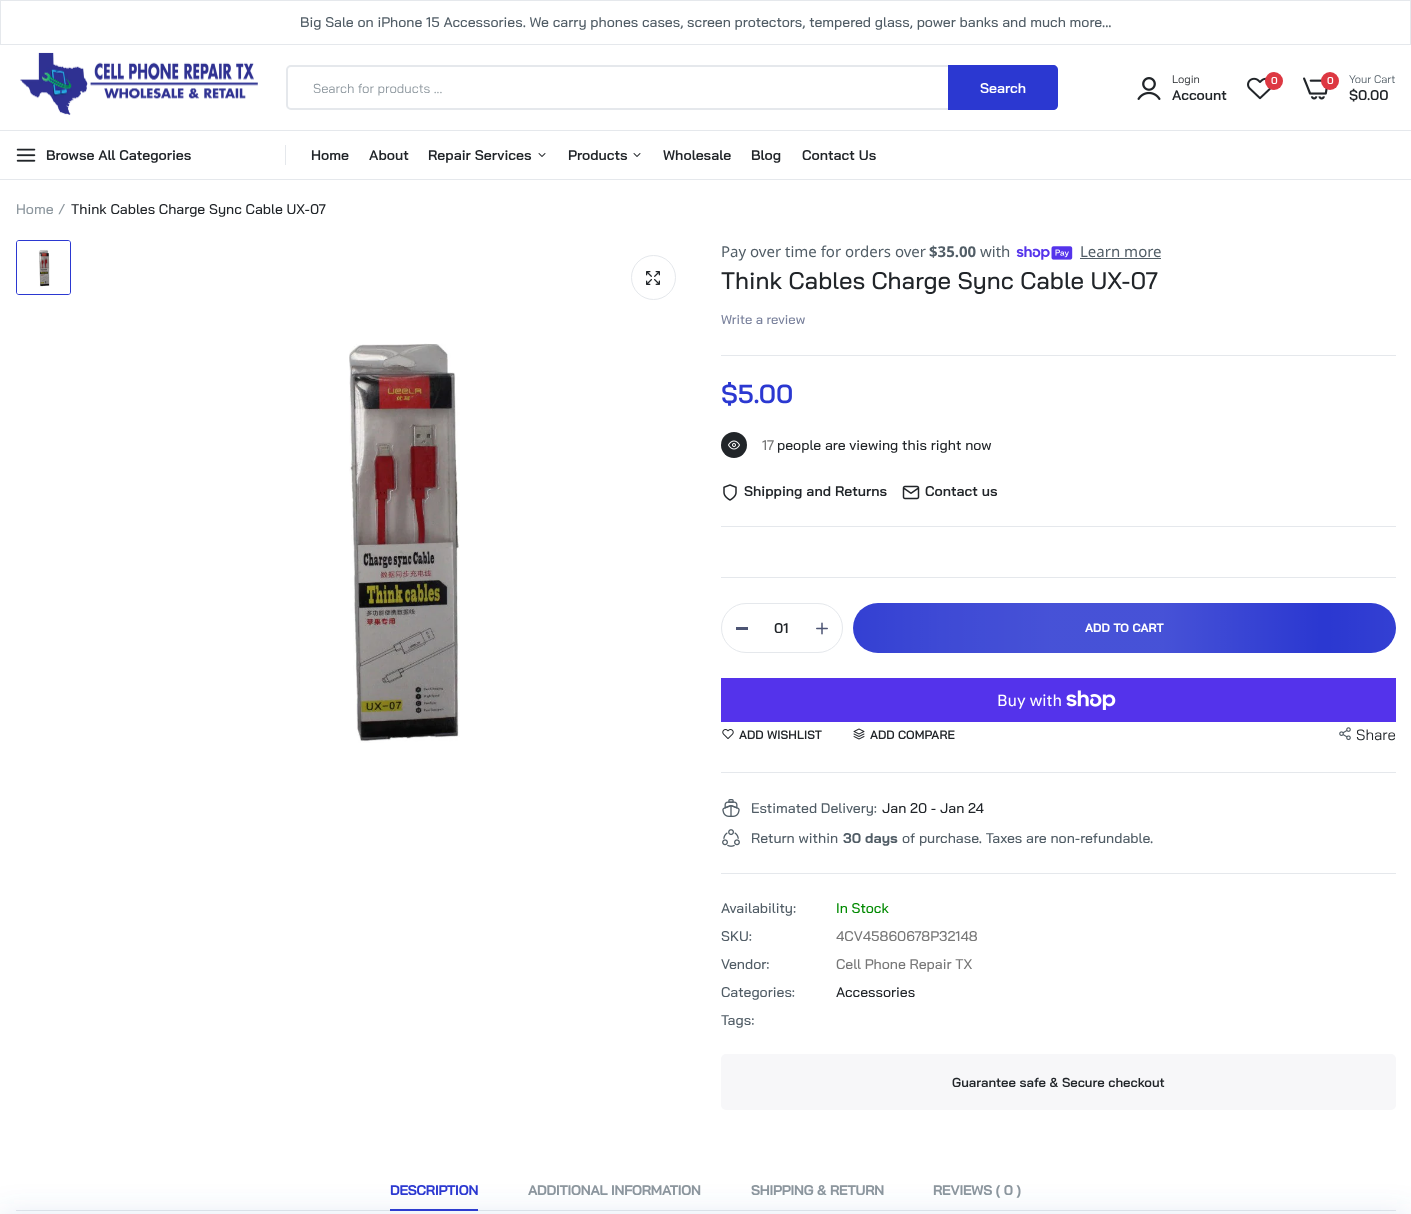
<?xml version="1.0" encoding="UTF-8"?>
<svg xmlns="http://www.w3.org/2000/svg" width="1411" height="1214">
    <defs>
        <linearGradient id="g1" gradientUnits="userSpaceOnUse" x1="778" y1="628" x2="1321" y2="628"><stop offset="0" stop-color="#FFFFFF" stop-opacity="0"/><stop offset="0.01" stop-color="#FFFFFF" stop-opacity="0"/><stop offset="0.3" stop-color="#FFFFFF" stop-opacity="0.09"/><stop offset="0.5" stop-color="#FFFFFF" stop-opacity="0.13"/><stop offset="0.71" stop-color="#FFFFFF" stop-opacity="0.13"/><stop offset="1" stop-color="#FFFFFF" stop-opacity="0"/></linearGradient>
        <linearGradient id="g2" gradientUnits="userSpaceOnUse" x1="1321" y1="628" x2="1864" y2="628"><stop offset="0" stop-color="#FFFFFF" stop-opacity="0"/><stop offset="0.01" stop-color="#FFFFFF" stop-opacity="0"/><stop offset="0.3" stop-color="#FFFFFF" stop-opacity="0.09"/><stop offset="0.5" stop-color="#FFFFFF" stop-opacity="0.13"/><stop offset="0.71" stop-color="#FFFFFF" stop-opacity="0.13"/><stop offset="1" stop-color="#FFFFFF" stop-opacity="0"/></linearGradient>
        <filter id="blur1" x="-50%" y="-200%" width="200%" height="500%"><feGaussianBlur stdDeviation="15"/></filter>
    </defs>
    <rect width="100%" height="100%" fill="#FFFFFF"/>
    <rect x="0.5" y="0.5" width="1410" height="44" fill="none" stroke="#E5E8EC"/>
    <text x="300" y="27" font-family="Bai Jamjuree" font-size="14" font-weight="500" fill="#515D66">Big Sale on iPhone 15 Accessories. We carry phones cases, screen protectors, tempered glass, power banks and much more...</text>
    <image x="20" y="52" width="238" height="63" href="img_01.png"/>
    <rect x="287" y="66" width="770" height="43" rx="4" fill="none" stroke="#E5E8EC" stroke-width="2"/>
    <text x="313" y="93" font-family="Bai Jamjuree" font-size="13" fill="#8D979E">Search for products ...</text>
    <path d="M 948 65 H 1053 C 1056 65 1058 67 1058 70 V 105 C 1058 108 1056 110 1053 110 H 948 Z" fill="#2B38D1"/>
    <text x="980" y="93" font-family="Bai Jamjuree" font-size="14" font-weight="600" fill="#FFFFFF">Search</text>
    <image x="1137" y="77" width="24" height="23" href="img_02.png"/>
    <text x="1172" y="83" font-family="Bai Jamjuree" font-size="11" fill="#212529">Login</text>
    <text x="1172" y="100" font-family="Bai Jamjuree" font-size="14" font-weight="600" fill="#212529">Account</text>
    <image x="1247" y="77" width="24" height="23" href="img_03.png"/>
    <circle cx="1274" cy="81" r="9" fill="#DD3842"/>
    <text x="1271" y="84" font-family="Bai Jamjuree" font-size="10" font-weight="600" fill="#FFFFFF">0</text>
    <image x="1303" y="77" width="25" height="23" href="img_04.png"/>
    <circle cx="1330" cy="81" r="9" fill="#DD3842"/>
    <text x="1327" y="84" font-family="Bai Jamjuree" font-size="10" font-weight="600" fill="#FFFFFF">0</text>
    <text x="1349" y="83" font-family="Bai Jamjuree" font-size="11" fill="#515D66">Your Cart</text>
    <text x="1349" y="100" font-family="Bai Jamjuree" font-size="14" font-weight="600" fill="#212529">$0.00</text>
    <rect x="0" y="130" width="1411" height="1" fill="#E5E8EC"/>
    <rect x="0" y="179" width="1411" height="1" fill="#E5E8EC"/>
    <image x="16" y="148" width="20" height="14" href="img_05.png"/>
    <text x="46" y="160" font-family="Bai Jamjuree" font-size="14" font-weight="600" fill="#212529">Browse All Categories</text>
    <rect x="285" y="145" width="1" height="20" fill="#E5E8EC"/>
    <text x="311" y="160" font-family="Bai Jamjuree" font-size="14" font-weight="600" fill="#212529">Home</text>
    <text x="369" y="160" font-family="Bai Jamjuree" font-size="14" font-weight="600" fill="#212529">About</text>
    <text x="428" y="160" font-family="Bai Jamjuree" font-size="14" font-weight="600" fill="#212529">Repair Services</text>
    <image x="538" y="153" width="8" height="4" href="img_06.png"/>
    <text x="568" y="160" font-family="Bai Jamjuree" font-size="14" font-weight="600" fill="#212529">Products</text>
    <image x="633" y="153" width="8" height="4" href="img_06.png"/>
    <text x="663" y="160" font-family="Bai Jamjuree" font-size="14" font-weight="600" fill="#212529">Wholesale</text>
    <text x="751" y="160" font-family="Bai Jamjuree" font-size="14" font-weight="600" fill="#212529">Blog</text>
    <text x="802" y="160" font-family="Bai Jamjuree" font-size="14" font-weight="600" fill="#212529">Contact Us</text>
    <text x="16" y="214" font-family="Bai Jamjuree" font-size="14" font-weight="500" fill="#8D979E">Home</text>
    <text x="58" y="214" font-family="Bai Jamjuree" font-size="14" font-weight="500" fill="#8D979E">/</text>
    <text x="71" y="214" font-family="Bai Jamjuree" font-size="14" font-weight="500" fill="#212529">Think Cables Charge Sync Cable UX-07</text>
    <rect x="16.5" y="240.5" width="54" height="54" rx="2.5" fill="none" stroke="#2B38D1"/>
    <image x="17" y="241" width="53" height="53" href="img_07.png"/>
    <circle cx="653.5" cy="277.5" r="22" fill="none" stroke="#E5E8EC"/>
    <image x="646" y="271" width="14" height="14" href="img_08.png"/>
    <image x="349" y="343" width="111" height="400" href="img_09.png"/>
    <text x="721" y="257" font-family="Noto Sans" font-size="15" fill="#515D66">Pay over time for orders over</text>
    <text x="929" y="257" font-family="Noto Sans" font-size="15" font-weight="700" fill="#515D66">$35.00</text>
    <text x="980" y="257" font-family="Noto Sans" font-size="15" fill="#515D66">with</text>
    <image x="1016" y="246" width="57" height="14" href="img_10.png"/>
    <text x="1080" y="257" font-family="Noto Sans" font-size="15" fill="#515D66">Learn more</text>
    <rect x="1080" y="258" width="81" height="1" fill="#515D66"/>
    <text x="721" y="289" font-family="Bai Jamjuree" font-size="24" font-weight="500" fill="#212529">Think Cables Charge Sync Cable UX-07</text>
    <rect x="721" y="355" width="675" height="1" fill="#E5E8EC"/>
    <text x="721" y="324" font-family="Bai Jamjuree" font-size="13" font-weight="500" fill="#79819C">Write a review</text>
    <text x="721" y="403" font-family="Bai Jamjuree" font-size="26" font-weight="600" fill="#2B38D1">$5.00</text>
    <circle cx="734" cy="445" r="13" fill="#212529"/>
    <image x="728" y="440" width="12" height="10" href="img_11.png"/>
    <text x="762" y="450" font-family="Bai Jamjuree" font-size="14" font-weight="500" fill="#777777">17</text>
    <text x="777" y="450" font-family="Bai Jamjuree" font-size="14" font-weight="500" fill="#212529">people are viewing this right now</text>
    <image x="723" y="484" width="14" height="17" href="img_12.png"/>
    <text x="744" y="496" font-family="Bai Jamjuree" font-size="14" font-weight="600" fill="#212529">Shipping and Returns</text>
    <image x="902" y="485" width="18" height="15" href="img_13.png"/>
    <text x="925" y="496" font-family="Bai Jamjuree" font-size="14" font-weight="600" fill="#212529">Contact us</text>
    <rect x="721" y="526" width="675" height="1" fill="#E5E8EC"/>
    <rect x="721" y="577" width="675" height="1" fill="#E5E8EC"/>
    <rect x="721.5" y="603.5" width="121" height="49" rx="24.5" fill="none" stroke="#E5E8EC"/>
    <rect x="736" y="627" width="12" height="3" fill="#4D5574"/>
    <text x="774" y="633" font-family="Bai Jamjuree" font-size="14" font-weight="600" fill="#212529">01</text>
    <image x="816" y="622" width="12" height="13" href="img_14.png"/>
    <rect x="853" y="603" width="543" height="50" rx="25" fill="#2B38D1"/>
    <path d="M 1316 653 H 848 L 857 603 H 1325 Z" fill="url(#g1)"/>
    <path d="M 1325 603 H 1400 L 1391 653 H 1316 Z" fill="url(#g2)"/>
    <text x="1085" y="632" font-family="Bai Jamjuree" font-size="12" font-weight="700" fill="#FFFFFF">ADD TO CART</text>
    <rect x="721" y="678" width="675" height="44" fill="#5433EB"/>
    <text x="997" y="706" font-family="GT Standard" font-size="16" fill="#FFFFFF">Buy with</text>
    <image x="1066" y="690" width="50" height="20" href="img_15.png"/>
    <rect x="721" y="772" width="675" height="1" fill="#E5E8EC"/>
    <image x="722" y="729" width="12" height="10" href="img_16.png"/>
    <text x="739" y="739" font-family="Bai Jamjuree" font-size="12" font-weight="600" fill="#212529">ADD WISHLIST</text>
    <image x="853" y="728" width="12" height="12" href="img_17.png"/>
    <text x="870" y="739" font-family="Bai Jamjuree" font-size="12" font-weight="600" fill="#212529">ADD COMPARE</text>
    <image x="1339" y="727" width="12" height="14" href="img_18.png"/>
    <text x="1356" y="740" font-family="Bai Jamjuree" font-size="15" fill="#212529">Share</text>
    <rect x="721" y="873" width="675" height="1" fill="#E5E8EC"/>
    <image x="722" y="799" width="18" height="18" href="img_19.png"/>
    <text x="751" y="813" font-family="Bai Jamjuree" font-size="14" font-weight="500" fill="#515D66">Estimated Delivery:</text>
    <text x="882" y="813" font-family="Bai Jamjuree" font-size="14" font-weight="500" fill="#212529">Jan 20 - Jan 24</text>
    <image x="722" y="829" width="18" height="18" href="img_20.png"/>
    <text x="751" y="843" font-family="Bai Jamjuree" font-size="14" font-weight="500" fill="#515D66">Return within</text>
    <text x="843" y="843" font-family="Bai Jamjuree" font-size="14" font-weight="700" fill="#515D66">30 days</text>
    <text x="902" y="843" font-family="Bai Jamjuree" font-size="14" font-weight="500" fill="#515D66">of purchase. Taxes are non-refundable.</text>
    <text x="721" y="913" font-family="Bai Jamjuree" font-size="14" font-weight="500" fill="#515D66">Availability:</text>
    <text x="836" y="913" font-family="Bai Jamjuree" font-size="14" font-weight="500" fill="#008A00">In Stock</text>
    <text x="721" y="941" font-family="Bai Jamjuree" font-size="14" font-weight="500" fill="#515D66">SKU:</text>
    <text x="836" y="941" font-family="Bai Jamjuree" font-size="14" font-weight="500" fill="#777777">4CV45860678P32148</text>
    <text x="721" y="969" font-family="Bai Jamjuree" font-size="14" font-weight="500" fill="#515D66">Vendor:</text>
    <text x="836" y="969" font-family="Bai Jamjuree" font-size="14" font-weight="500" fill="#777777">Cell Phone Repair TX</text>
    <text x="721" y="997" font-family="Bai Jamjuree" font-size="14" font-weight="500" fill="#515D66">Categories:</text>
    <text x="836" y="997" font-family="Bai Jamjuree" font-size="14" font-weight="500" fill="#212529">Accessories</text>
    <text x="721" y="1025" font-family="Bai Jamjuree" font-size="14" font-weight="500" fill="#515D66">Tags:</text>
    <rect x="721" y="1054" width="675" height="56" rx="5" fill="#F7F7F9"/>
    <text x="952" y="1087" font-family="Bai Jamjuree" font-size="13" font-weight="600" fill="#212529">Guarantee safe &amp; Secure checkout</text>
    <rect x="16" y="1210" width="1380" height="1" fill="#E5E8EC"/>
    <text x="390" y="1195" font-family="Bai Jamjuree" font-size="14" font-weight="700" letter-spacing="-0.4" fill="#2B38D1">DESCRIPTION</text>
    <rect x="390" y="1209" width="88" height="2" fill="#2B38D1"/>
    <text x="528" y="1195" font-family="Bai Jamjuree" font-size="14" font-weight="700" letter-spacing="-0.4" fill="#8D979E">ADDITIONAL INFORMATION</text>
    <text x="751" y="1195" font-family="Bai Jamjuree" font-size="14" font-weight="700" letter-spacing="-0.4" fill="#8D979E">SHIPPING &amp; RETURN</text>
    <text x="933" y="1195" font-family="Bai Jamjuree" font-size="14" font-weight="700" letter-spacing="-0.4" fill="#8D979E">REVIEWS ( 0 )</text>
    <rect x="0" y="1214" width="1411" height="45" fill="#487BB7" fill-opacity="0.15" filter="url(#blur1)"/>
</svg>
